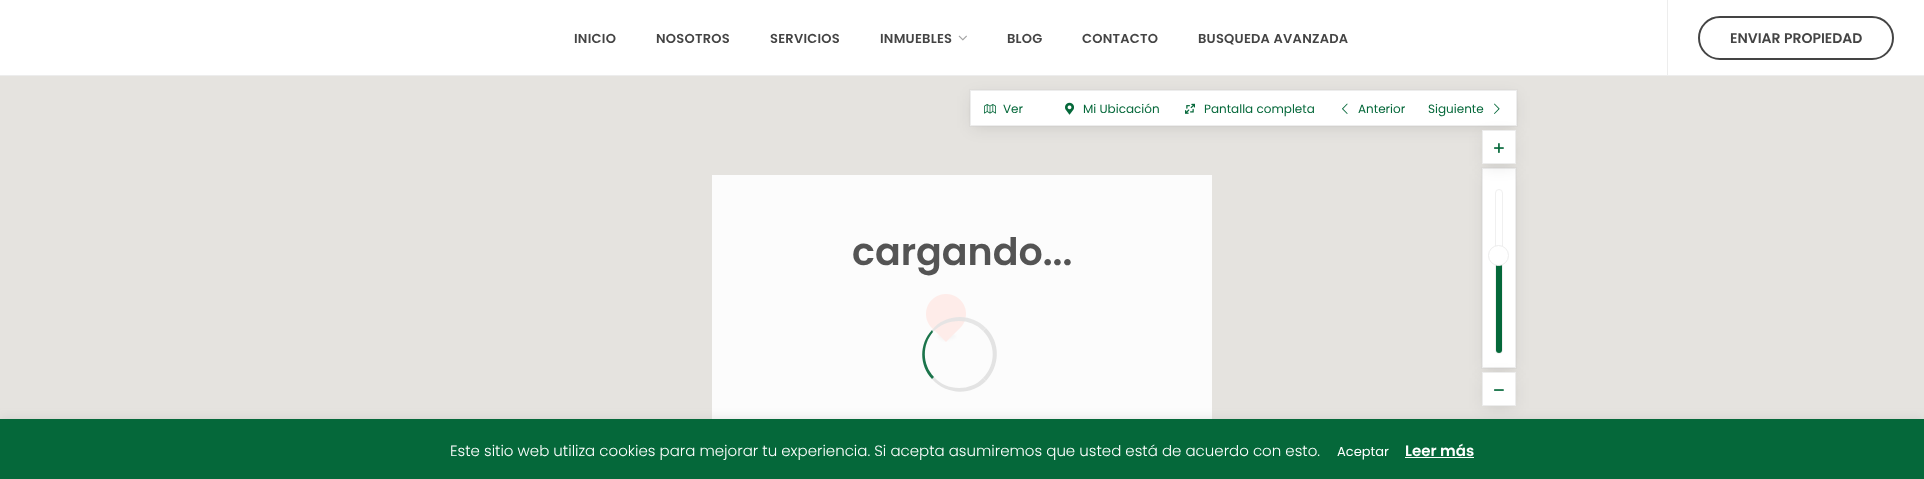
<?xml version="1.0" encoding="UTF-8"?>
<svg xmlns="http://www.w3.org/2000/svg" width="1924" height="479">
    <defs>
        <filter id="blur1" x="-50%" y="-200%" width="200%" height="500%"><feGaussianBlur stdDeviation="8"/></filter>
        <filter id="blur2" x="-50%" y="-200%" width="200%" height="500%"><feGaussianBlur stdDeviation="5"/></filter>
    </defs>
    <rect width="100%" height="100%" fill="#E5E3DF"/>
    <rect x="969.5" y="89.5" width="548" height="37" fill="none" stroke="#E0DEDB"/>
    <rect x="972" y="96" width="543" height="32" fill="#000000" fill-opacity="0.1" filter="url(#blur1)"/>
    <rect x="0" y="0" width="1924" height="75" fill="#FFFFFF"/>
    <rect x="0" y="75" width="1924" height="1" fill="#EDEDED"/>
    <text x="574" y="43" font-family="Poppins" font-size="13" font-weight="600" letter-spacing="0.25" fill="#444444">INICIO</text>
    <text x="656" y="43" font-family="Poppins" font-size="13" font-weight="600" letter-spacing="0.25" fill="#444444">NOSOTROS</text>
    <text x="770" y="43" font-family="Poppins" font-size="13" font-weight="600" letter-spacing="0.25" fill="#444444">SERVICIOS</text>
    <text x="880" y="43" font-family="Poppins" font-size="13" font-weight="600" letter-spacing="0.25" fill="#444444">INMUEBLES</text>
    <image x="958" y="35" width="9" height="6" href="img_01.png"/>
    <text x="1007" y="43" font-family="Poppins" font-size="13" font-weight="600" letter-spacing="0.25" fill="#444444">BLOG</text>
    <text x="1082" y="43" font-family="Poppins" font-size="13" font-weight="600" letter-spacing="0.25" fill="#444444">CONTACTO</text>
    <text x="1198" y="43" font-family="Poppins" font-size="13" font-weight="600" letter-spacing="0.25" fill="#444444">BUSQUEDA AVANZADA</text>
    <rect x="1667" y="0" width="1" height="75" fill="#EDEDED"/>
    <rect x="1699" y="17" width="194" height="42" rx="21" fill="none" stroke="#444444" stroke-width="2"/>
    <text x="1730" y="43" font-family="Poppins" font-size="14" font-weight="600" fill="#444444">ENVIAR PROPIEDAD</text>
    <rect x="970.5" y="90.5" width="546" height="35" fill="#FFFFFF" stroke="#EDEDED"/>
    <image x="984" y="104" width="12" height="10" href="img_02.png"/>
    <text x="1003" y="113" font-family="Poppins" font-size="12" fill="#05683A">Ver</text>
    <image x="1065" y="102" width="9" height="13" href="img_03.png"/>
    <text x="1083" y="113" font-family="Poppins" font-size="12" fill="#05683A">Mi Ubicación</text>
    <image x="1185" y="103" width="10" height="11" href="img_04.png"/>
    <text x="1204" y="113" font-family="Poppins" font-size="12" fill="#05683A">Pantalla completa</text>
    <image x="1342" y="103" width="6" height="11" href="img_05.png"/>
    <text x="1358" y="113" font-family="Poppins" font-size="12" fill="#05683A">Anterior</text>
    <text x="1428" y="113" font-family="Poppins" font-size="12" fill="#05683A">Siguiente</text>
    <image x="1494" y="103" width="6" height="11" href="img_06.png"/>
    <rect x="1481.5" y="167.5" width="35" height="201" fill="none" stroke="#E0DEDB"/>
    <rect x="1484" y="174" width="30" height="196" fill="#000000" fill-opacity="0.1" filter="url(#blur1)"/>
    <rect x="1482.5" y="168.5" width="33" height="199" fill="#FFFFFF" stroke="#EDEDED"/>
    <rect x="1495.5" y="189.5" width="7" height="164" rx="3.5" fill="none" stroke="#F0F0F0"/>
    <rect x="1484" y="136" width="30" height="30" fill="#000000" fill-opacity="0.1" filter="url(#blur1)"/>
    <rect x="1482.5" y="130.5" width="33" height="33" fill="#FFFFFF" stroke="#EDEDED"/>
    <image x="1494" y="143" width="10" height="10" href="img_07.png"/>
    <rect x="1496" y="259" width="6" height="94" rx="3" fill="#05683A"/>
    <circle cx="1498.5" cy="255.5" r="10" fill="#FFFFFF" stroke="#EDEDED"/>
    <rect x="1484" y="378" width="30" height="30" fill="#000000" fill-opacity="0.1" filter="url(#blur1)"/>
    <rect x="1482.5" y="372.5" width="33" height="33" fill="#FFFFFF" stroke="#EDEDED"/>
    <image x="1494" y="389" width="10" height="2" href="img_08.png"/>
    <rect x="712" y="175" width="500" height="244" fill="#FCFCFC"/>
    <image x="926" y="294" width="40" height="48" href="img_09.png"/>
    <text x="852" y="265" font-family="Poppins" font-size="38" font-weight="600" fill="#545454">cargando...</text>
    <path d="M 960 317 C 949 317 938 322 932 330 L 933 332 C 946 318 970 317 983 331 L 986 328 C 979 321 970 317 960 317 Z" fill="#E3E3E3" fill-opacity="0.9"/>
    <path d="M 986 328 C 1001 343 1000 366 986 381 L 983 378 C 996 365 996 344 983 331 Z" fill="#E3E3E3"/>
    <path d="M 986 381 C 971 396 946 395 932 379 L 934 377 C 946 391 970 392 983 378 Z" fill="#E3E3E3"/>
    <path d="M 932 379 C 919 365 919 344 932 330 L 933 332 C 922 345 922 364 934 377 Z" fill="#1B744B"/>
    <rect x="0" y="418" width="1924" height="60" fill="#ACABAB" fill-opacity="0.3" filter="url(#blur2)"/>
    <rect x="0" y="419" width="1924" height="60" fill="#05683A"/>
    <text x="450" y="456" font-family="Poppins" font-size="15" font-weight="300" fill="#FFFFFF">Este sitio web utiliza cookies para mejorar tu experiencia. Si acepta asumiremos que usted está de acuerdo con esto.</text>
    <text x="1337" y="456" font-family="Poppins" font-size="13" fill="#FFFFFF">Aceptar</text>
    <text x="1405" y="456" font-family="Poppins" font-size="15" font-weight="600" fill="#FFFFFF">Leer más</text>
    <rect x="1405" y="457" width="69" height="1" fill="#FFFFFF"/>
</svg>
